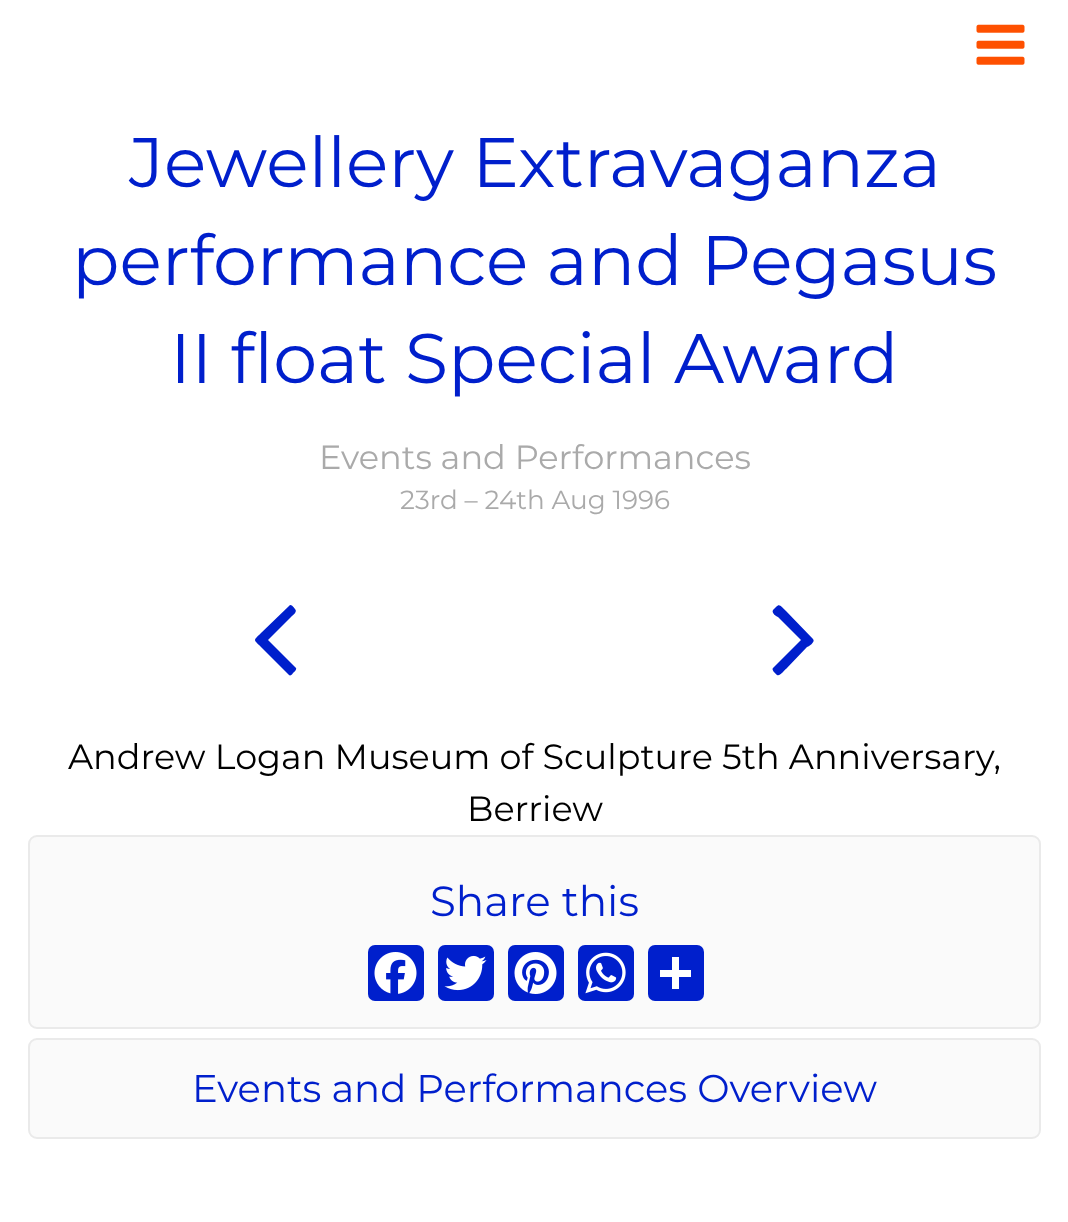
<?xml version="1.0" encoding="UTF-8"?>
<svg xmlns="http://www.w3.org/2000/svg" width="1068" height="1222">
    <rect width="100%" height="100%" fill="#FFFFFF"/>
    <image x="976" y="24" width="49" height="41" href="img_01.png"/>
    <text x="129" y="187" font-family="Montserrat" font-size="70" font-weight="100" fill="#001FCC">Jewellery Extravaganza</text>
    <text x="72" y="285" font-family="Montserrat" font-size="70" font-weight="100" fill="#001FCC">performance and Pegasus</text>
    <text x="170" y="383" font-family="Montserrat" font-size="70" font-weight="100" fill="#001FCC">II float Special Award</text>
    <text x="319" y="469" font-family="Montserrat" font-size="33.6" font-weight="100" fill="#AAAAAA">Events and Performances</text>
    <text x="400" y="509" font-family="Montserrat" font-size="26.25" font-weight="100" fill="#AAAAAA">23rd – 24th Aug 1996</text>
    <text x="68" y="769" font-family="Montserrat" font-size="35" font-weight="100" fill="#000000">Andrew Logan Museum of Sculpture 5th Anniversary,</text>
    <text x="467" y="821" font-family="Montserrat" font-size="35" font-weight="100" fill="#000000">Berriew</text>
    <rect x="29" y="836" width="1011" height="192" rx="8" fill="#FAFAFA" stroke="#EAEAEA" stroke-width="2"/>
    <text x="430" y="916" font-family="Montserrat" font-size="42" font-weight="100" fill="#001FCC">Share this</text>
    <rect x="368" y="945" width="56" height="56" rx="7" fill="#001FCC"/>
    <image x="374" y="952" width="43" height="42" href="img_02.png"/>
    <rect x="438" y="945" width="56" height="56" rx="7" fill="#001FCC"/>
    <image x="444" y="955" width="43" height="36" href="img_03.png"/>
    <rect x="508" y="945" width="56" height="56" rx="7" fill="#001FCC"/>
    <image x="514" y="952" width="43" height="42" href="img_04.png"/>
    <rect x="578" y="945" width="56" height="56" rx="7" fill="#001FCC"/>
    <image x="585" y="952" width="41" height="42" href="img_05.png"/>
    <rect x="648" y="945" width="56" height="56" rx="7" fill="#001FCC"/>
    <rect x="672" y="957" width="7" height="32" fill="#FFFFFF"/>
    <rect x="660" y="970" width="31" height="7" fill="#FFFFFF"/>
    <rect x="29" y="1039" width="1011" height="99" rx="8" fill="#FAFAFA" stroke="#EAEAEA" stroke-width="2"/>
    <path d="M 295 609 C 298 612 292 616 291 617 L 268 640 L 296 668 C 297 670 294 672 293 673 C 292 675 290 676 289 675 L 261 647 C 253 639 253 641 261 633 L 289 606 C 291 603 294 608 295 609 Z" fill="#001FCC"/>
    <path d="M 813 639 C 816 642 808 647 807 647 L 786 669 C 785 669 780 677 777 675 C 776 674 771 670 773 668 L 801 640 L 778 617 C 777 617 771 613 773 610 L 776 607 C 780 603 781 607 786 611 Z" fill="#001FCC"/>
    <text x="192" y="1102" font-family="Montserrat" font-size="38.5" font-weight="100" fill="#001FCC">Events and Performances Overview</text>
</svg>
